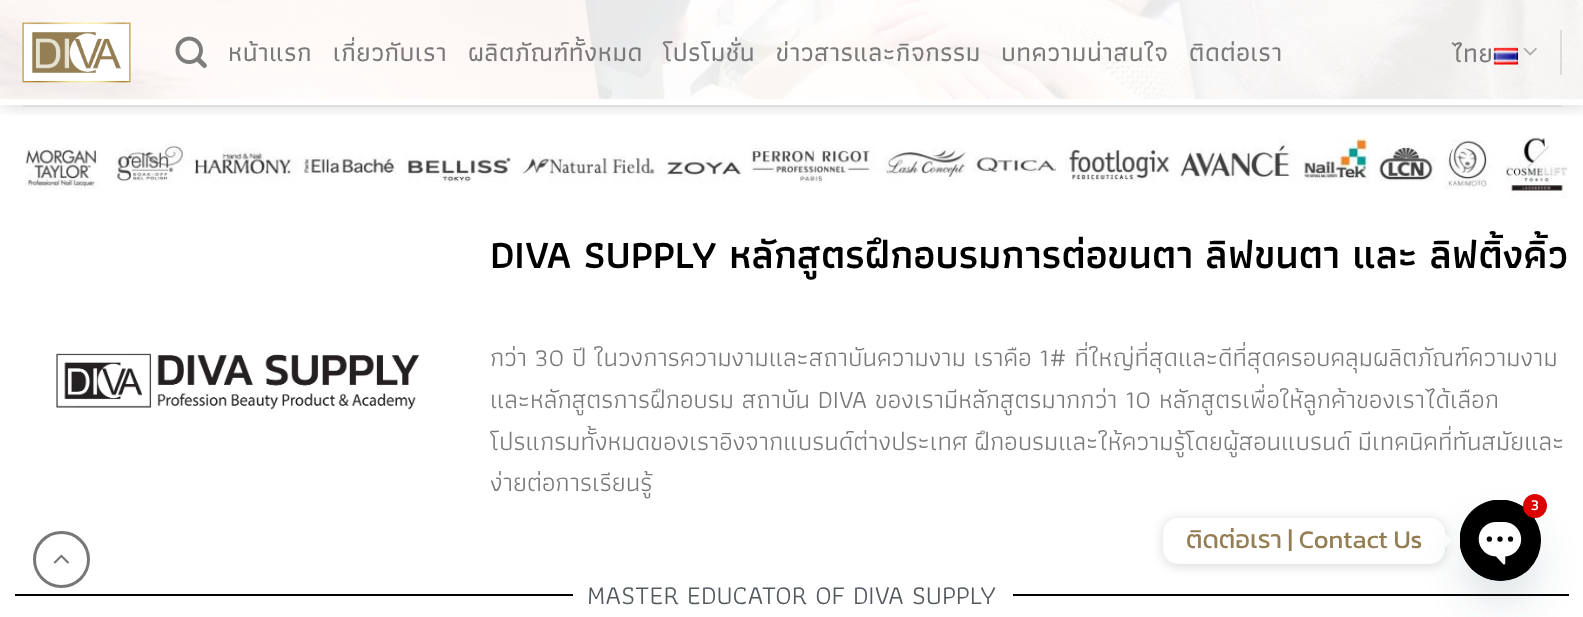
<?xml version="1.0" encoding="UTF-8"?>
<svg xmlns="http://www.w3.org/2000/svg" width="1583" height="617">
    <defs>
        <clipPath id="clip1"><rect x="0" y="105" width="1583" height="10"/></clipPath>
        <filter id="blur1" x="-50%" y="-200%" width="200%" height="500%"><feGaussianBlur stdDeviation="7.5"/></filter>
        <filter id="blur2" x="-50%" y="-200%" width="200%" height="500%"><feGaussianBlur stdDeviation="6"/></filter>
        <filter id="blur3" x="-50%" y="-200%" width="200%" height="500%"><feGaussianBlur stdDeviation="18"/></filter>
    </defs>
    <rect width="100%" height="100%" fill="#FFFFFF"/>
    <image x="0" y="0" width="1583" height="99" href="img_06.png"/>
    <g clip-path="url(#clip1)">
        <rect x="2" y="2" width="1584" height="105" fill="#000000" fill-opacity="0.15" filter="url(#blur1)"/>
    </g>
    <image x="22" y="22" width="109" height="61" href="img_01.png"/>
    <image x="175" y="36" width="32" height="32" href="img_02.png"/>
    <text x="228" y="61" font-family="Athiti" font-size="26.25" font-weight="500" letter-spacing="0.5" fill="#7A7A7A">หน้าแรก</text>
    <text x="333" y="61" font-family="Athiti" font-size="26.25" font-weight="500" letter-spacing="0.5" fill="#7A7A7A">เกี่ยวกับเรา</text>
    <text x="468" y="61" font-family="Athiti" font-size="26.25" font-weight="500" letter-spacing="0.5" fill="#7A7A7A">ผลิตภัณฑ์ทั้งหมด</text>
    <text x="663" y="61" font-family="Athiti" font-size="26.25" font-weight="500" letter-spacing="0.5" fill="#7A7A7A">โปรโมชั่น</text>
    <text x="776" y="61" font-family="Athiti" font-size="26.25" font-weight="500" letter-spacing="0.5" fill="#7A7A7A">ข่าวสารและกิจกรรม</text>
    <text x="1001" y="61" font-family="Athiti" font-size="26.25" font-weight="500" letter-spacing="0.5" fill="#7A7A7A">บทความน่าสนใจ</text>
    <text x="1189" y="61" font-family="Athiti" font-size="26.25" font-weight="500" letter-spacing="0.5" fill="#7A7A7A">ติดต่อเรา</text>
    <text x="1452" y="62" font-family="Athiti" font-size="26.25" font-weight="500" letter-spacing="0.5" fill="#7A7A7A">ไทย</text>
    <image x="1493" y="47" width="25" height="18" href="img_03.png"/>
    <image x="1523" y="47" width="14" height="9" href="img_04.png"/>
    <rect x="1560" y="30" width="2" height="45" fill="#000000" fill-opacity="0.1"/>
    <rect x="23" y="105" width="1539" height="2" fill="#DEDEDE"/>
    <circle cx="61.5" cy="559.5" r="27" fill="none" stroke="#777777" stroke-width="3"/>
    <image x="53" y="554" width="16" height="10" href="img_05.png"/>
    <image x="25" y="137" width="1543" height="61" href="img_07.png"/>
    <image x="56" y="353" width="364" height="57" href="img_08.png"/>
    <text x="490" y="268" font-family="Athiti" font-size="40.4" font-weight="600" fill="#000000">DIVA SUPPLY หลักสูตรฝึกอบรมการต่อขนตา ลิฟขนตา และ ลิฟติ้งคิ้ว</text>
    <text font-family="Athiti" font-size="26" fill="#7A7A7A">
        <tspan x="490" y="366" word-spacing="-0.25">กว่า 30 ปี ในวงการความงามและสถาบันความงาม เราคือ 1# ที่ใหญ่ที่สุดและดีที่สุดครอบคลุมผลิตภัณฑ์ความงาม</tspan>
        <tspan x="490" y="408">และหลักสูตรการฝึกอบรม สถาบัน DIVA ของเรามีหลักสูตรมากกว่า 10 หลักสูตรเพื่อให้ลูกค้าของเราได้เลือก</tspan>
        <tspan x="490" y="450" word-spacing="-1">โปรแกรมทั้งหมดของเราอิงจากแบรนด์ต่างประเทศ ฝึกอบรมและให้ความรู้โดยผู้สอนแบรนด์ มีเทคนิคที่ทันสมัยและ</tspan>
        <tspan x="490" y="491">ง่ายต่อการเรียนรู้</tspan>
    </text>
    <rect x="15" y="594" width="558" height="2" fill="#000000"/>
    <text x="587" y="604" font-family="Athiti" font-size="26.9" fill="#54595F">MASTER EDUCATOR OF DIVA SUPPLY</text>
    <rect x="1013" y="594" width="556" height="2" fill="#000000"/>
    <rect x="1163" y="519" width="282" height="47" rx="15" fill="#000000" fill-opacity="0.15" filter="url(#blur2)"/>
    <rect x="1163" y="518" width="282" height="46" rx="15" fill="#FFFFFF"/>
    <path d="M 1444.5 548 V 533 L 1452 541 Z" fill="#FFFFFF"/>
    <rect x="1460" y="524" width="81" height="81" rx="40.5" fill="#49687E" fill-opacity="0.16" filter="url(#blur3)"/>
    <circle cx="1500.5" cy="540.5" r="40.5" fill="#000000"/>
    <image x="1460" y="500" width="81" height="81" href="img_09.png"/>
    <circle cx="1535" cy="506" r="12" fill="#DD0000"/>
    <text x="1531" y="510" font-family="Kanit" font-size="15" fill="#FFFFFF">3</text>
    <text x="1186" y="548" font-family="Kanit" font-size="25.5" fill="#957E54">ติดต่อเรา | Contact Us</text>
</svg>
